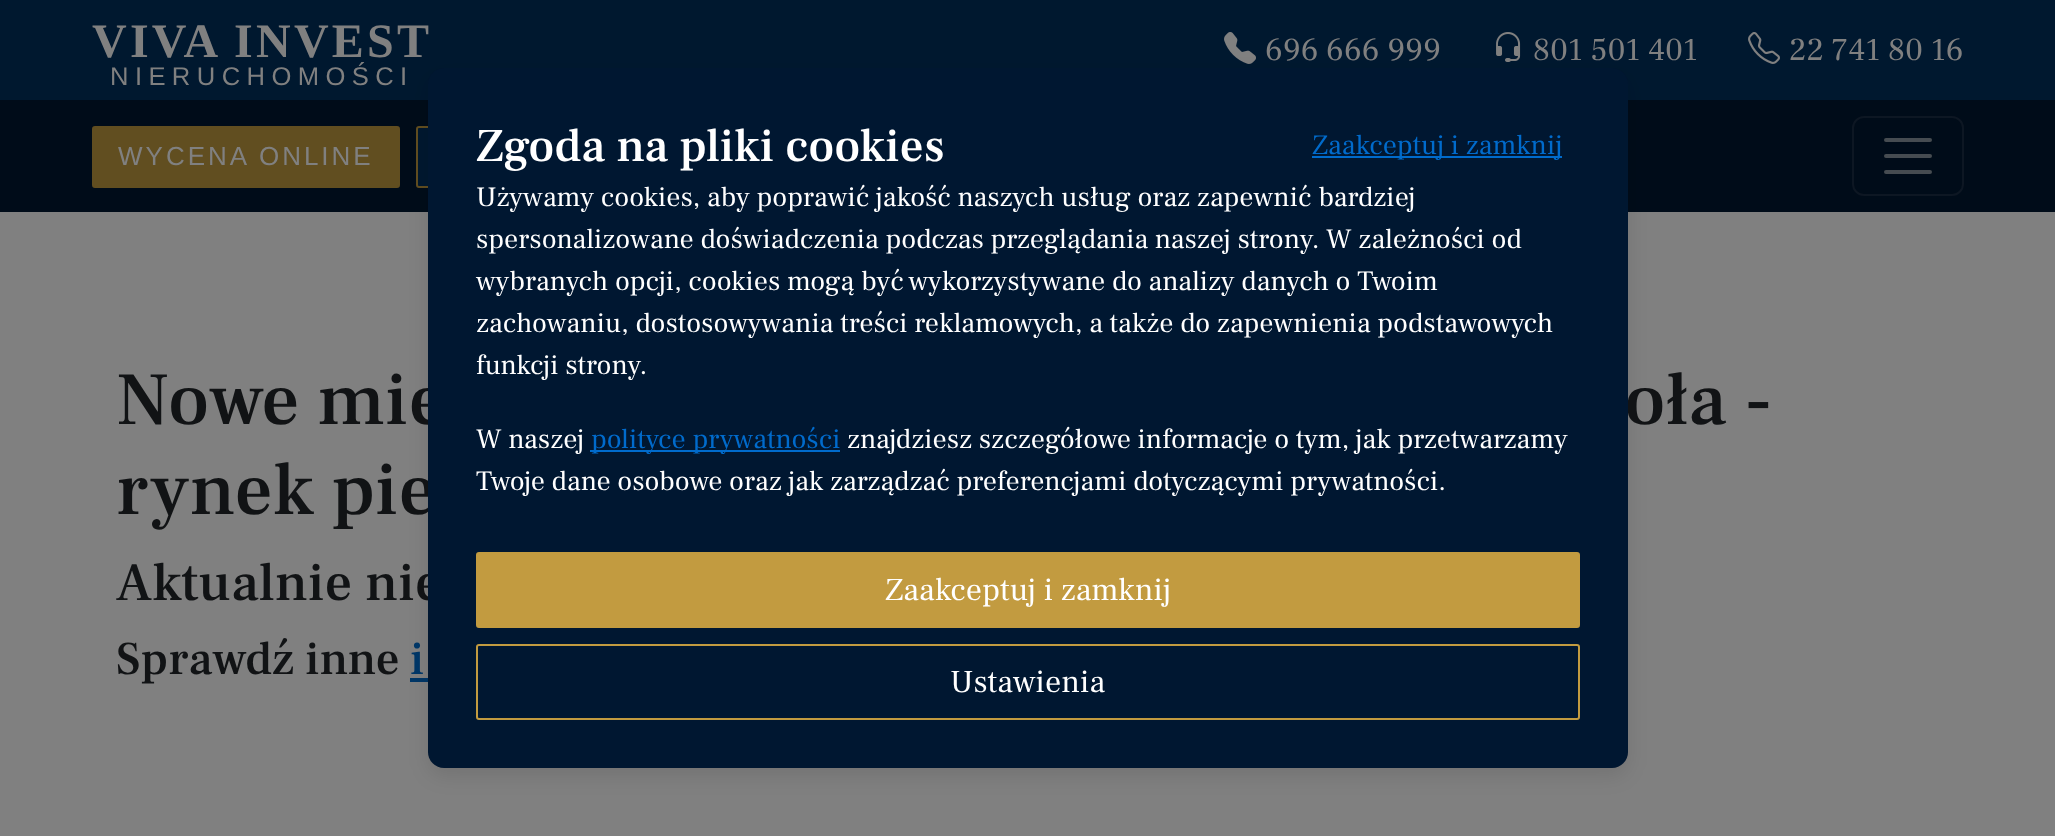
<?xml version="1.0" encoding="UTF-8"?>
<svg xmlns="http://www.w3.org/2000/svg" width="2055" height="836">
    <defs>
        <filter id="blur1" x="-50%" y="-200%" width="200%" height="500%"><feGaussianBlur stdDeviation="10"/></filter>
    </defs>
    <rect width="100%" height="100%" fill="#808080"/>
    <rect x="0" y="0" width="2055" height="100" fill="#00182F"/>
    <text x="92" y="57" font-family="Liberation Serif" font-size="48" font-weight="700" letter-spacing="3.25" fill="#808080">VIVA INVEST</text>
    <text x="110" y="85" font-family="Liberation Sans" font-size="25.6" letter-spacing="6.4" fill="#808080">NIERUCHOMOŚCI</text>
    <image x="1224" y="32" width="32" height="32" href="img_01.png"/>
    <text x="1265" y="60" font-family="Frank Ruhl Libre" font-size="32" fill="#808080">696 666 999</text>
    <image x="1496" y="32" width="25" height="30" href="img_02.png"/>
    <text x="1533" y="60" font-family="Frank Ruhl Libre" font-size="32" fill="#808080">801 501 401</text>
    <image x="1748" y="32" width="32" height="32" href="img_03.png"/>
    <text x="1789" y="60" font-family="Frank Ruhl Libre" font-size="32" fill="#808080">22 741 80 16</text>
    <rect x="0" y="100" width="2055" height="112" fill="#000C19"/>
    <rect x="93" y="127" width="306" height="60" rx="2" fill="#614E20" stroke="#614E20" stroke-width="2"/>
    <text x="118" y="165" font-family="Liberation Sans" font-size="26" letter-spacing="3" fill="#808080">WYCENA ONLINE</text>
    <rect x="417" y="127" width="326" height="60" rx="2" fill="#00182F" stroke="#614E20" stroke-width="2"/>
    <rect x="1853" y="117" width="110" height="78" rx="11" fill="none" stroke="#0D1723" stroke-width="2"/>
    <path d="M 1886 140 H 1930 M 1886 156 H 1930 M 1886 172 H 1930" fill="none" stroke="#464C51" stroke-width="4" stroke-linecap="round"/>
    <rect x="410" y="678" width="18" height="4" fill="#003666"/>
    <rect x="428" y="76" width="1200" height="700" rx="16" fill="#000000" fill-opacity="0.1" filter="url(#blur1)"/>
    <text x="116" y="424" font-family="Frank Ruhl Libre" font-size="75" font-weight="500" fill="#111315">Nowe mie</text>
    <text x="1624" y="424" font-family="Frank Ruhl Libre" font-size="75" font-weight="500" fill="#111315">oła -</text>
    <text x="116" y="514" font-family="Frank Ruhl Libre" font-size="75" font-weight="500" fill="#111315">rynek pie</text>
    <text x="116" y="600" font-family="Frank Ruhl Libre" font-size="54" font-weight="500" fill="#111315">Aktualnie nie</text>
    <rect x="428" y="68" width="1200" height="700" rx="16" fill="#001731"/>
    <text x="476" y="161" font-family="Frank Ruhl Libre" font-size="47" font-weight="500" fill="#FFFFFF">Zgoda na pliki cookies</text>
    <rect x="1312" y="156" width="250" height="2" fill="#006BCC"/>
    <text x="1312" y="154" font-family="Frank Ruhl Libre" font-size="28" fill="#006BCC">Zaakceptuj i zamknij</text>
    <text font-family="Frank Ruhl Libre" font-size="28" fill="#FFFFFF">
        <tspan x="476" y="206">Używamy cookies, aby poprawić jakość naszych usług oraz zapewnić bardziej</tspan>
        <tspan x="476" y="248">spersonalizowane doświadczenia podczas przeglądania naszej strony. W zależności od</tspan>
        <tspan x="476" y="290">wybranych opcji, cookies mogą być wykorzystywane do analizy danych o Twoim</tspan>
        <tspan x="476" y="332">zachowaniu, dostosowywania treści reklamowych, a także do zapewnienia podstawowych</tspan>
        <tspan x="476" y="374">funkcji strony.</tspan>
    </text>
    <text x="476" y="448" font-family="Frank Ruhl Libre" font-size="28" fill="#FFFFFF">W naszej</text>
    <rect x="590" y="450" width="250" height="2" fill="#006BCC"/>
    <text x="591" y="448" font-family="Frank Ruhl Libre" font-size="28" fill="#006BCC">polityce prywatności</text>
    <text x="847" y="448" font-family="Frank Ruhl Libre" font-size="28" fill="#FFFFFF">znajdziesz szczegółowe informacje o tym, jak przetwarzamy</text>
    <text x="476" y="490" font-family="Frank Ruhl Libre" font-size="28" fill="#FFFFFF">Twoje dane osobowe oraz jak zarządzać preferencjami dotyczącymi prywatności.</text>
    <rect x="477" y="553" width="1102" height="74" rx="2" fill="#C29B40" stroke="#C29B40" stroke-width="2"/>
    <text x="885" y="600" font-family="Frank Ruhl Libre" font-size="32" fill="#FFFFFF">Zaakceptuj i zamknij</text>
    <rect x="477" y="645" width="1102" height="74" rx="2" fill="none" stroke="#C29B40" stroke-width="2"/>
    <text x="950" y="692" font-family="Frank Ruhl Libre" font-size="32" fill="#FFFFFF">Ustawienia</text>
    <text x="116" y="674" font-family="Frank Ruhl Libre" font-size="47" font-weight="500" fill="#111315">Sprawdź inne</text>
    <text x="410" y="674" font-family="Frank Ruhl Libre" font-size="47" font-weight="500" fill="#003666">i</text>
</svg>
